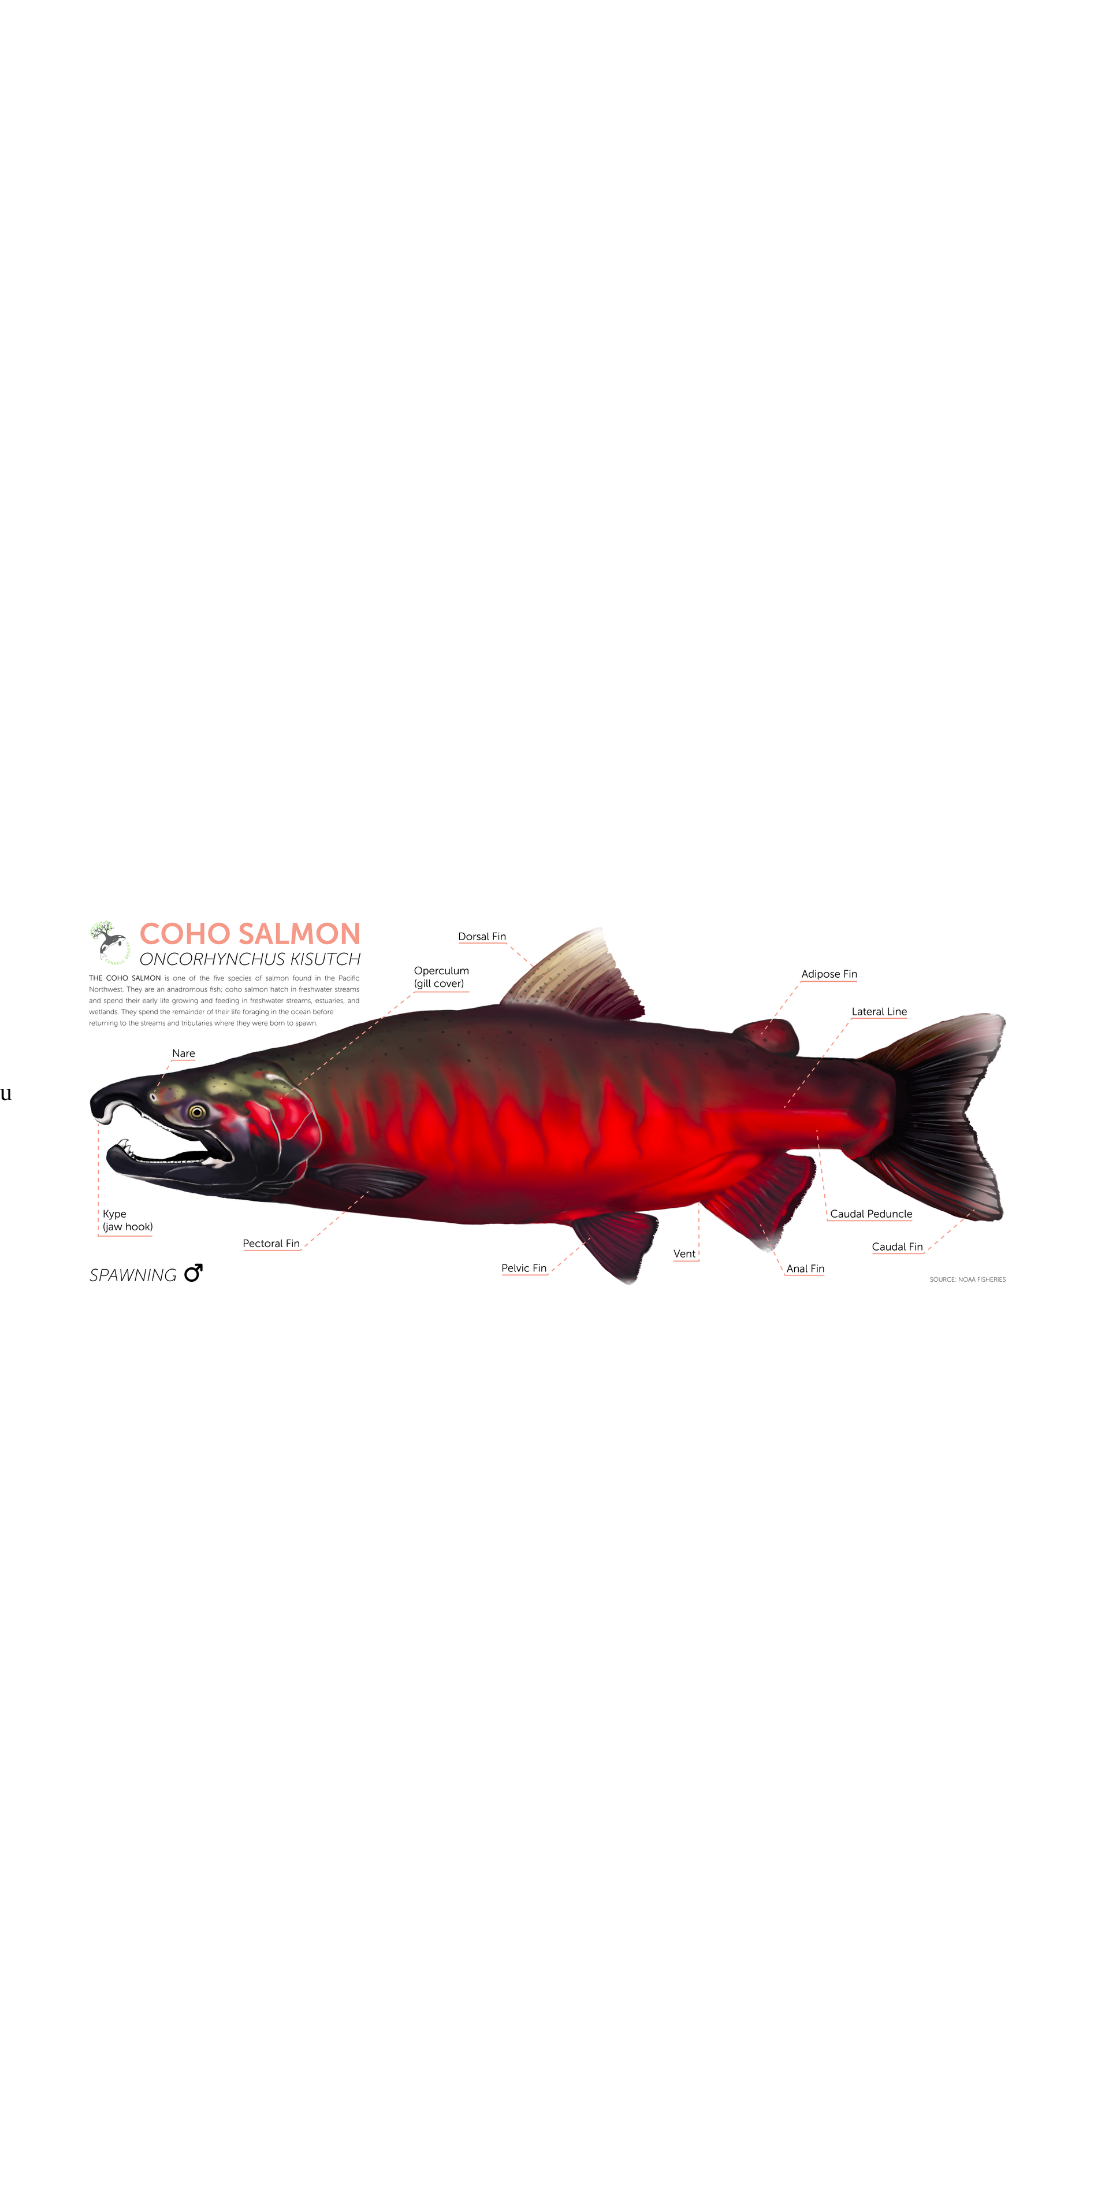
<?xml version="1.0" encoding="UTF-8"?>
<svg xmlns="http://www.w3.org/2000/svg" width="1109" height="2193">
    <rect width="100%" height="100%" fill="#FFFFFF"/>
    <text x="0" y="1100" font-family="Liberation Serif" font-size="24" fill="#000000">u</text>
    <image x="89" y="920" width="917" height="365" href="img_01.png"/>
</svg>
